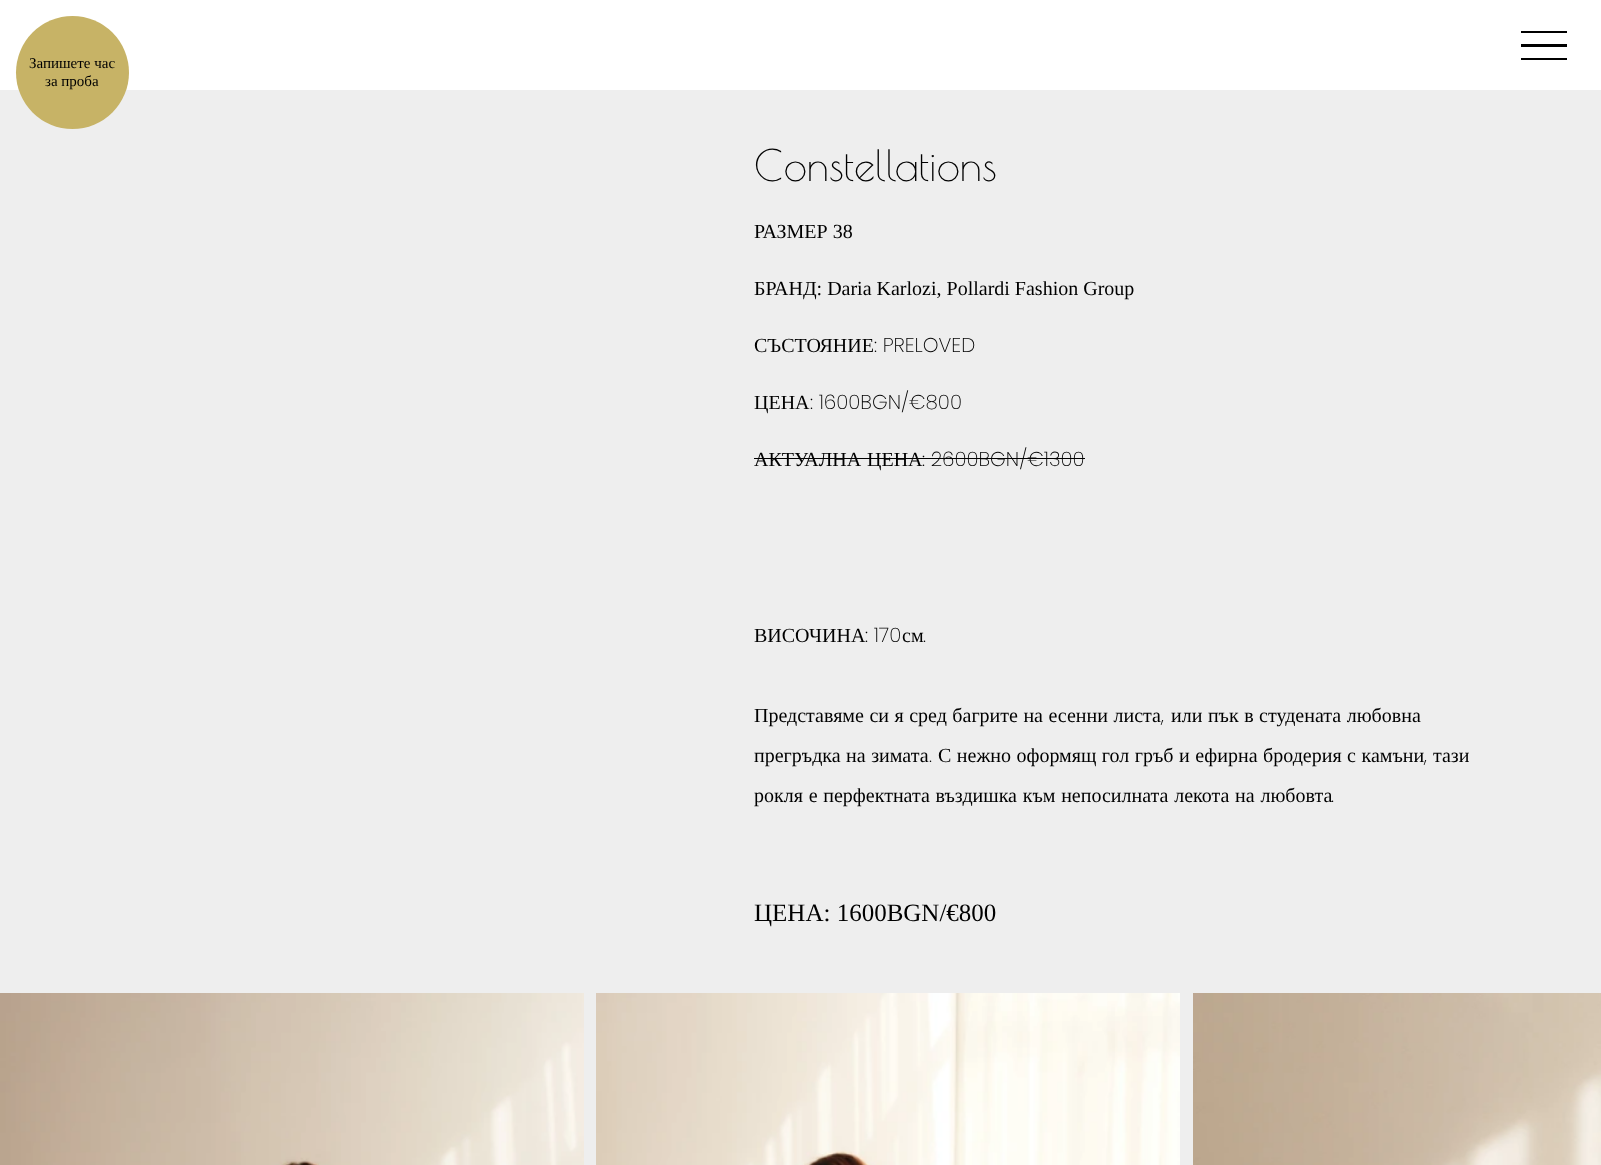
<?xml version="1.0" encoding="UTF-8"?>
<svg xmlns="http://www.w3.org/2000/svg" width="1601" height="1165">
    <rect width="100%" height="100%" fill="#FFFFFF"/>
    <rect x="1521" y="31" width="46" height="2" fill="#000000"/>
    <rect x="1521" y="44" width="46" height="3" fill="#000000"/>
    <rect x="1521" y="58" width="46" height="2" fill="#000000"/>
    <rect x="0" y="90" width="1601" height="903" fill="#EEEEEE"/>
    <circle cx="72.5" cy="72.5" r="56.5" fill="#C7B366"/>
    <text x="29" y="68" font-family="Liberation Serif" font-size="15" fill="#000000">Запишете час</text>
    <text x="45" y="86" font-family="Liberation Serif" font-size="15" fill="#000000">за проба</text>
    <text x="754" y="181" font-family="Poiret One" font-size="42.5" fill="#000000">Constellations</text>
    <text x="754" y="238" font-family="Liberation Serif" font-size="20" fill="#000000">РАЗМЕР 38</text>
    <text x="754" y="295" font-family="Liberation Serif" font-size="20" fill="#000000">БРАНД: Daria Karlozi, Pollardi Fashion Group</text>
    <text x="754" y="352" font-family="Liberation Serif" font-size="20" fill="#000000">СЪСТОЯНИЕ</text>
    <text x="874" y="352" font-family="Poppins" font-size="20" font-weight="200" fill="#000000">: PRELOVED</text>
    <text x="754" y="409" font-family="Liberation Serif" font-size="20" fill="#000000">ЦЕНА</text>
    <text x="810" y="409" font-family="Poppins" font-size="20" font-weight="200" fill="#000000">: 1600BGN/€800</text>
    <text x="754" y="466" font-family="Liberation Serif" font-size="20" fill="#000000">АКТУАЛНА</text>
    <text x="867" y="466" font-family="Liberation Serif" font-size="20" fill="#000000">ЦЕНА</text>
    <text x="922" y="466" font-family="Poppins" font-size="20" font-weight="200" fill="#000000">: 2600BGN/€1300</text>
    <rect x="754" y="458" width="331" height="1" fill="#000000"/>
    <text x="754" y="642" font-family="Liberation Serif" font-size="20" fill="#000000">ВИСОЧИНА</text>
    <text x="865" y="642" font-family="Poppins" font-size="20" font-weight="200" fill="#000000">: 170</text>
    <text x="902" y="642" font-family="Liberation Serif" font-size="20" fill="#000000">см</text>
    <text x="923" y="642" font-family="Poppins" font-size="20" font-weight="200" fill="#000000">.</text>
    <text x="754" y="722" word-spacing="0.5" font-family="Liberation Serif" font-size="20" fill="#000000">Представяме си я сред багрите на есенни листа</text>
    <text x="1161" y="722" font-family="Poppins" font-size="20" font-weight="200" fill="#000000">,</text>
    <text x="1171" y="722" word-spacing="0.5" font-family="Liberation Serif" font-size="20" fill="#000000">или пък в студената любовна</text>
    <text x="754" y="762" word-spacing="0.5" font-family="Liberation Serif" font-size="20" fill="#000000">прегръдка на зимата</text>
    <text x="929" y="762" font-family="Poppins" font-size="20" font-weight="200" fill="#000000">.</text>
    <text x="938" y="762" word-spacing="0.5" font-family="Liberation Serif" font-size="20" fill="#000000">С нежно оформящ гол гръб и ефирна бродерия с камъни</text>
    <text x="1424" y="762" font-family="Poppins" font-size="20" font-weight="200" fill="#000000">,</text>
    <text x="1433" y="762" font-family="Liberation Serif" font-size="20" fill="#000000">тази</text>
    <text x="754" y="802" word-spacing="0.75" font-family="Liberation Serif" font-size="20" fill="#000000">рокля е перфектната въздишка към непосилната лекота на любовта</text>
    <text x="1331" y="802" font-family="Poppins" font-size="20" font-weight="200" fill="#000000">.</text>
    <text x="754" y="921" font-family="Liberation Serif" font-size="25" fill="#000000">ЦЕНА: 1600BGN/€800</text>
    <image x="0" y="993" width="584" height="172" href="img_01.png"/>
    <rect x="584" y="993" width="609" height="172" fill="#EEEEEE"/>
    <image x="596" y="993" width="584" height="172" href="img_02.png"/>
    <image x="1193" y="993" width="408" height="172" href="img_03.png"/>
</svg>
